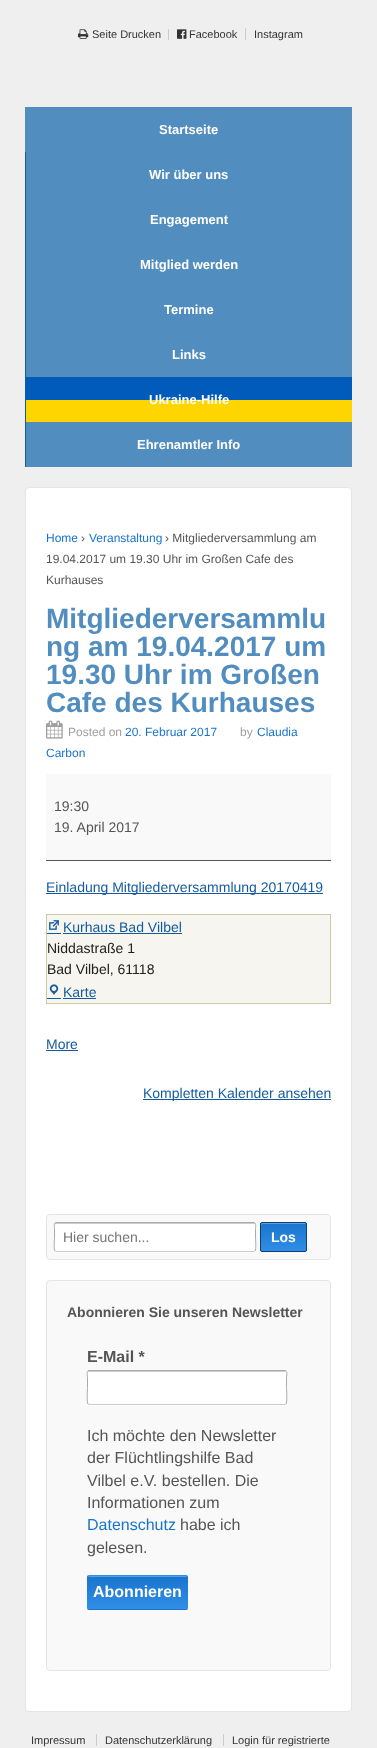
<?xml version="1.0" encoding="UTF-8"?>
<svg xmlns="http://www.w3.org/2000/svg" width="377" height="1748">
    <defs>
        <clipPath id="clip1"><rect x="260" y="1222" width="47" height="30" rx="2"/></clipPath>
        <linearGradient id="g1" gradientUnits="userSpaceOnUse" x1="284" y1="1251" x2="284" y2="1223"><stop offset="0" stop-color="#318EE7"/><stop offset="1" stop-color="#1874CD"/></linearGradient>
        <clipPath id="clip2"><rect x="87" y="1575" width="101" height="35" rx="2"/></clipPath>
        <linearGradient id="g2" gradientUnits="userSpaceOnUse" x1="138" y1="1576" x2="138" y2="1543"><stop offset="0" stop-color="#318EE7"/><stop offset="1" stop-color="#1874CD"/></linearGradient>
        <linearGradient id="g3" gradientUnits="userSpaceOnUse" x1="138" y1="1609" x2="138" y2="1576"><stop offset="0" stop-color="#318EE7"/><stop offset="1" stop-color="#1874CD"/></linearGradient>
        <linearGradient id="g4" gradientUnits="userSpaceOnUse" x1="138" y1="1642" x2="138" y2="1609"><stop offset="0" stop-color="#318EE7"/><stop offset="1" stop-color="#1874CD"/></linearGradient>
    </defs>
    <rect width="100%" height="100%" fill="#EFEFEF"/>
    <image x="78" y="29" width="11" height="10" href="img_01.png"/>
    <text x="92" y="38" font-family="Liberation Sans" font-size="11" fill="#333333">Seite Drucken</text>
    <rect x="168" y="29" width="1" height="11" fill="#CCCCCC"/>
    <image x="177" y="29" width="10" height="10" href="img_02.png"/>
    <text x="189" y="38" font-family="Liberation Sans" font-size="11" fill="#333333">Facebook</text>
    <text x="254" y="38" font-family="Liberation Sans" font-size="11" fill="#333333">Instagram</text>
    <rect x="245" y="28" width="1" height="12" fill="#CCCCCC"/>
    <rect x="25" y="107" width="327" height="360" fill="#518DBF"/>
    <text x="159" y="134" font-family="Liberation Sans" font-size="13" font-weight="700" fill="#FFFFFF">Startseite</text>
    <rect x="25" y="152" width="1" height="315" fill="#135A9F"/>
    <text x="149" y="179" font-family="Liberation Sans" font-size="13" font-weight="700" fill="#FFFFFF">Wir über uns</text>
    <text x="150" y="224" font-family="Liberation Sans" font-size="13" font-weight="700" fill="#FFFFFF">Engagement</text>
    <text x="140" y="269" font-family="Liberation Sans" font-size="13" font-weight="700" fill="#FFFFFF">Mitglied werden</text>
    <text x="164" y="314" font-family="Liberation Sans" font-size="13" font-weight="700" fill="#FFFFFF">Termine</text>
    <text x="172" y="359" font-family="Liberation Sans" font-size="13" font-weight="700" fill="#FFFFFF">Links</text>
    <rect x="26" y="377" width="326" height="23" fill="#005BBB"/>
    <rect x="26" y="400" width="326" height="22" fill="#FFD500"/>
    <text x="149" y="404" font-family="Liberation Sans" font-size="13" font-weight="700" fill="#FFFFFF">Ukraine-Hilfe</text>
    <text x="137" y="449" font-family="Liberation Sans" font-size="13" font-weight="700" fill="#FFFFFF">Ehrenamtler Info</text>
    <rect x="25.5" y="487.5" width="326" height="1224" rx="3.5" fill="#FFFFFF" stroke="#E5E5E5"/>
    <text x="46" y="542" font-family="Liberation Sans" font-size="12" fill="#1874CD">Home</text>
    <text x="81" y="542" font-family="Liberation Sans" font-size="12" fill="#555555">›</text>
    <text x="89" y="542" font-family="Liberation Sans" font-size="12" fill="#1874CD">Veranstaltung</text>
    <text x="165" y="542" font-family="Liberation Sans" font-size="12" fill="#555555">› Mitgliederversammlung am</text>
    <text font-family="Liberation Sans" font-size="12" fill="#555555">
        <tspan x="46" y="563">19.04.2017 um 19.30 Uhr im Großen Cafe des</tspan>
        <tspan x="46" y="584">Kurhauses</tspan>
    </text>
    <text font-family="Liberation Sans" font-size="28" font-weight="700" fill="#518DBF">
        <tspan x="46" y="628">Mitgliederversammlu</tspan>
        <tspan x="46" y="656">ng am 19.04.2017 um</tspan>
        <tspan x="46" y="684">19.30 Uhr im Großen</tspan>
        <tspan x="46" y="712">Cafe des Kurhauses</tspan>
    </text>
    <image x="46" y="720" width="17" height="19" href="img_03.png"/>
    <text x="68" y="736" font-family="Liberation Sans" font-size="12" fill="#9F9F9F">Posted on</text>
    <text x="125" y="736" font-family="Liberation Sans" font-size="12" fill="#1874CD">20. Februar 2017</text>
    <text x="240" y="736" font-family="Liberation Sans" font-size="12" fill="#9F9F9F">by</text>
    <text x="257" y="736" font-family="Liberation Sans" font-size="12" fill="#1874CD">Claudia</text>
    <text x="46" y="757" font-family="Liberation Sans" font-size="12" fill="#1874CD">Carbon</text>
    <rect x="46" y="774" width="285" height="86" fill="#F9F9F9"/>
    <rect x="46" y="860" width="285" height="1" fill="#555555"/>
    <text font-family="Liberation Sans" font-size="14" fill="#555555">
        <tspan x="54" y="811">19:30</tspan>
        <tspan x="54" y="832">19. April 2017</tspan>
    </text>
    <rect x="46" y="893" width="277" height="1" fill="#135A9F"/>
    <text x="46" y="892" font-family="Liberation Sans" font-size="14" fill="#135A9F">Einladung Mitgliederversammlung 20170419</text>
    <rect x="46.5" y="914.5" width="284" height="89" fill="#F6F5EF" stroke="#CDC9A5"/>
    <image x="49" y="920" width="10" height="10" href="img_04.png"/>
    <text x="63" y="932" font-family="Liberation Sans" font-size="14" fill="#135A9F">Kurhaus Bad Vilbel</text>
    <rect x="47" y="933" width="14" height="1" fill="#135A9F"/>
    <rect x="63" y="933" width="119" height="1" fill="#135A9F"/>
    <text font-family="Liberation Sans" font-size="14" fill="#212121">
        <tspan x="47" y="953">Niddastraße 1</tspan>
        <tspan x="47" y="974">Bad Vilbel, 61118</tspan>
    </text>
    <image x="49" y="984" width="10" height="11" href="img_05.png"/>
    <text x="63" y="997" font-family="Liberation Sans" font-size="14" fill="#135A9F">Karte</text>
    <rect x="47" y="998" width="14" height="1" fill="#135A9F"/>
    <rect x="63" y="998" width="33" height="1" fill="#135A9F"/>
    <text x="46" y="1049" font-family="Liberation Sans" font-size="14" fill="#135A9F">More</text>
    <rect x="46" y="1050" width="32" height="1" fill="#135A9F"/>
    <rect x="143" y="1099" width="188" height="1" fill="#135A9F"/>
    <text x="143" y="1098" font-family="Liberation Sans" font-size="14" fill="#135A9F">Kompletten Kalender ansehen</text>
    <rect x="46.5" y="1214.5" width="284" height="45" rx="3.5" fill="#F9F9F9" stroke="#E5E5E5"/>
    <path d="M 54 1250 C 54 1251 54 1253 56 1253 H 254 C 256 1253 256 1251 256 1250 C 256 1251 255 1252 254 1252 H 56 C 55 1252 54 1251 54 1250 Z" fill="#FFFFFF"/>
    <rect x="54" y="1222" width="202" height="30" rx="2" fill="#FFFFFF"/>
    <path d="M 56 1224 H 255 V 1225 C 255 1224 255 1223 254 1223 H 55 V 1225 C 55 1224 55 1224 56 1224 Z" fill="#CCCCCC"/>
    <path d="M 255 1251 L 254 1251.5 H 56 L 55 1251" fill="none" stroke="#CCCCCC"/>
    <path d="M 55 1251 C 53.5 1249.5 54.5 1239 54.5 1237 V 1228.5 C 54.5 1228 53.5 1222.5 56 1222.5 H 254 C 256.5 1222.5 255.5 1228 255.5 1228.5 V 1237 C 255.5 1239 256.5 1249.5 255 1251" fill="none" stroke="#AAAAAA"/>
    <text x="63" y="1242" font-family="Liberation Sans" font-size="14" fill="#757575">Hier suchen...</text>
    <g clip-path="url(#clip1)">
        <rect x="260" y="1223" width="47" height="28" fill="url(#g1)"/>
    </g>
    <path d="M 262 1224 H 305 C 306 1224 306 1225 306 1226 C 306 1221 304 1223 298 1223 H 269 C 262 1223 261 1221 261 1226 Z M 306 1250 V 1251 Z" fill="#5D9EDC" fill-rule="evenodd"/>
    <rect x="260.5" y="1222.5" width="46" height="29" rx="1.5" fill="none" stroke="#0D4072"/>
    <text x="271" y="1242" font-family="Liberation Sans" font-size="14" font-weight="700" fill="#FFFFFF">Los</text>
    <rect x="46.5" y="1280.5" width="284" height="390" rx="3.5" fill="#F9F9F9" stroke="#E5E5E5"/>
    <text x="67" y="1317" font-family="Liberation Sans" font-size="14" font-weight="700" fill="#555555">Abonnieren Sie unseren Newsletter</text>
    <text x="87" y="1362" font-family="Liberation Sans" font-size="16" font-weight="700" fill="#555555">E-Mail *</text>
    <path d="M 87 1403 C 87 1404 87 1406 89 1406 H 285 C 287 1406 287 1404 287 1403 C 287 1404 286 1405 285 1405 H 89 C 88 1405 87 1404 87 1403 Z" fill="#FFFFFF"/>
    <rect x="87" y="1370" width="200" height="35" rx="2" fill="#FFFFFF"/>
    <path d="M 89 1372 H 286 V 1373 C 286 1372 286 1371 285 1371 H 88 V 1373 C 88 1372 88 1372 89 1372 Z" fill="#CCCCCC"/>
    <path d="M 286 1404 L 285 1404.5 H 89 L 88 1404" fill="none" stroke="#CCCCCC"/>
    <path d="M 88 1404 C 86.5 1402.5 87.5 1390 87.5 1387.5 V 1377 C 87.5 1377 86 1370.5 89 1370.5 H 285 C 288 1370.5 286.5 1377 286.5 1377 V 1387.5 C 286.5 1390 287.5 1402.5 286 1404" fill="none" stroke="#AAAAAA"/>
    <text font-family="Liberation Sans" font-size="16" fill="#555555">
        <tspan x="87" y="1441">Ich möchte den Newsletter</tspan>
        <tspan x="87" y="1463">der Flüchtlingshilfe Bad</tspan>
        <tspan x="87" y="1486">Vilbel e.V. bestellen. Die</tspan>
        <tspan x="87" y="1508">Informationen zum</tspan>
    </text>
    <text x="87" y="1530" font-family="Liberation Sans" font-size="16" fill="#1874CD">Datenschutz</text>
    <text x="180" y="1530" font-family="Liberation Sans" font-size="16" fill="#555555">habe ich</text>
    <text x="87" y="1553" font-family="Liberation Sans" font-size="16" fill="#555555">gelesen.</text>
    <g clip-path="url(#clip2)">
        <rect x="87" y="1575" width="101" height="1" fill="url(#g2)"/>
        <rect x="87" y="1576" width="101" height="33" fill="url(#g3)"/>
        <rect x="87" y="1609" width="101" height="1" fill="url(#g4)"/>
    </g>
    <path d="M 89 1577 H 186 C 187 1577 187 1577 187 1578 C 187 1577 187 1576 186 1576 H 89 C 88 1576 88 1577 88 1578 C 88 1577 88 1577 89 1577 Z" fill="#5D9EDC"/>
    <text x="93" y="1597" font-family="Liberation Sans" font-size="16" font-weight="700" fill="#FFFFFF">Abonnieren</text>
    <text x="31" y="1744" font-family="Liberation Sans" font-size="11" fill="#333333">Impressum</text>
    <text x="105" y="1744" font-family="Liberation Sans" font-size="11" fill="#333333">Datenschutzerklärung</text>
    <rect x="96" y="1734" width="1" height="12" fill="#CCCCCC"/>
    <text x="232" y="1744" font-family="Liberation Sans" font-size="11" fill="#333333">Login für registrierte</text>
    <rect x="223" y="1734" width="1" height="12" fill="#CCCCCC"/>
</svg>
